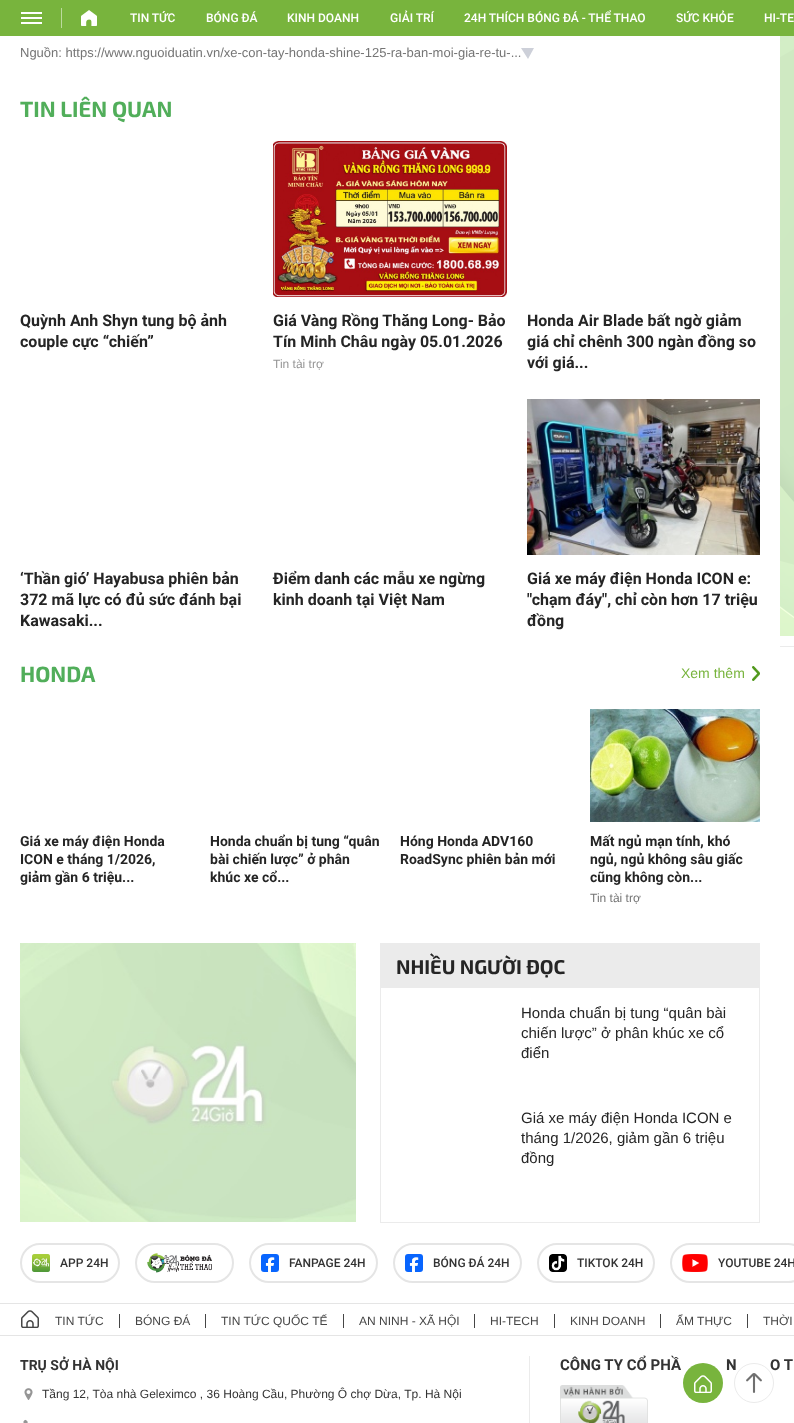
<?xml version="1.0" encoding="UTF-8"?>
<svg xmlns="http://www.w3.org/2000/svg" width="794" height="1423">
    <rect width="100%" height="100%" fill="#FFFFFF"/>
    <rect x="0" y="0" width="794" height="36" fill="#78B43D"/>
    <rect x="21" y="12" width="21" height="2" fill="#FFFFFF"/>
    <rect x="21" y="17" width="21" height="2" fill="#FFFFFF"/>
    <rect x="21" y="22" width="21" height="2" fill="#FFFFFF"/>
    <rect x="61" y="8" width="1" height="20" fill="#BCDA9E"/>
    <image x="81" y="10" width="16" height="16" href="img_01.png"/>
    <text x="130" y="22" font-family="Roboto" font-size="12" font-weight="500" fill="#FFFFFF">TIN TỨC</text>
    <text x="206" y="22" font-family="Roboto" font-size="12" font-weight="500" fill="#FFFFFF">BÓNG ĐÁ</text>
    <text x="287" y="22" font-family="Roboto" font-size="12" font-weight="500" fill="#FFFFFF">KINH DOANH</text>
    <text x="390" y="22" font-family="Roboto" font-size="12" font-weight="500" fill="#FFFFFF">GIẢI TRÍ</text>
    <text x="464" y="22" font-family="Roboto" font-size="12" font-weight="500" fill="#FFFFFF">24H THÍCH BÓNG ĐÁ - THỂ THAO</text>
    <text x="676" y="22" font-family="Roboto" font-size="12" font-weight="500" fill="#FFFFFF">SỨC KHỎE</text>
    <text x="764" y="22" font-family="Roboto" font-size="12" font-weight="500" fill="#FFFFFF">HI-TE</text>
    <text x="20" y="57" font-family="Liberation Sans" font-size="13" fill="#757575">Nguồn: https://www.nguoiduatin.vn/xe-con-tay-honda-shine-125-ra-ban-moi-gia-re-tu-...</text>
    <path d="M 521 48 H 534 L 528 59 Z" fill="#CDD0D9"/>
    <text x="20" y="117" font-family="'Exo 2'" font-size="22" font-weight="700" fill="#51AE5A">TIN LIÊN QUAN</text>
    <text font-family="Roboto" font-size="16" font-weight="700" fill="#252525">
        <tspan x="20" y="326">Quỳnh Anh Shyn tung bộ ảnh</tspan>
        <tspan x="20" y="347">couple cực “chiến”</tspan>
    </text>
    <image x="273" y="141" width="234" height="156" href="img_02.png"/>
    <text font-family="Roboto" font-size="16" font-weight="700" fill="#252525">
        <tspan x="273" y="326">Giá Vàng Rồng Thăng Long- Bảo</tspan>
        <tspan x="273" y="347">Tín Minh Châu ngày 05.01.2026</tspan>
    </text>
    <text x="273" y="368" font-family="Liberation Sans" font-size="12" fill="#959595">Tin tài trợ</text>
    <text font-family="Roboto" font-size="16" font-weight="700" fill="#252525">
        <tspan x="527" y="326">Honda Air Blade bất ngờ giảm</tspan>
        <tspan x="527" y="347">giá chỉ chênh 300 ngàn đồng so</tspan>
        <tspan x="527" y="368">với giá...</tspan>
    </text>
    <text font-family="Roboto" font-size="16" font-weight="700" fill="#252525">
        <tspan x="20" y="584">‘Thần gió’ Hayabusa phiên bản</tspan>
        <tspan x="20" y="605">372 mã lực có đủ sức đánh bại</tspan>
        <tspan x="20" y="626">Kawasaki...</tspan>
    </text>
    <text font-family="Roboto" font-size="16" font-weight="700" fill="#252525">
        <tspan x="273" y="584">Điểm danh các mẫu xe ngừng</tspan>
        <tspan x="273" y="605">kinh doanh tại Việt Nam</tspan>
    </text>
    <image x="527" y="399" width="233" height="156" href="img_03.png"/>
    <text font-family="Roboto" font-size="16" font-weight="700" fill="#252525">
        <tspan x="527" y="584">Giá xe máy điện Honda ICON e:</tspan>
        <tspan x="527" y="605">"chạm đáy", chỉ còn hơn 17 triệu</tspan>
        <tspan x="527" y="626">đồng</tspan>
    </text>
    <text x="20" y="682" font-family="'Exo 2'" font-size="22" font-weight="700" fill="#51AE5A">HONDA</text>
    <text x="681" y="678" font-family="Liberation Sans" font-size="14" fill="#78B43D">Xem thêm</text>
    <image x="752" y="666" width="8" height="15" href="img_04.png"/>
    <text font-family="Roboto" font-size="14" font-weight="700" fill="#252525">
        <tspan x="20" y="846">Giá xe máy điện Honda</tspan>
        <tspan x="20" y="864">ICON e tháng 1/2026,</tspan>
        <tspan x="20" y="882">giảm gần 6 triệu...</tspan>
    </text>
    <text font-family="Roboto" font-size="14" font-weight="700" fill="#252525">
        <tspan x="210" y="846">Honda chuẩn bị tung “quân</tspan>
        <tspan x="210" y="864">bài chiến lược” ở phân</tspan>
        <tspan x="210" y="882">khúc xe cổ...</tspan>
    </text>
    <text font-family="Roboto" font-size="14" font-weight="700" fill="#252525">
        <tspan x="400" y="846">Hóng Honda ADV160</tspan>
        <tspan x="400" y="864">RoadSync phiên bản mới</tspan>
    </text>
    <image x="590" y="709" width="170" height="113" href="img_05.png"/>
    <text font-family="Roboto" font-size="14" font-weight="700" fill="#252525">
        <tspan x="590" y="846">Mất ngủ mạn tính, khó</tspan>
        <tspan x="590" y="864">ngủ, ngủ không sâu giấc</tspan>
        <tspan x="590" y="882">cũng không còn...</tspan>
    </text>
    <text x="590" y="902" font-family="Liberation Sans" font-size="12" fill="#757575">Tin tài trợ</text>
    <image x="20" y="943" width="336" height="279" href="img_06.png"/>
    <rect x="380.5" y="943.5" width="379" height="279" fill="none" stroke="#EBEBEB"/>
    <rect x="381" y="944" width="378" height="44" fill="#EBEBEB"/>
    <text x="396" y="974" font-family="'Exo 2'" font-size="20" font-weight="700" fill="#252525">NHIỀU NGƯỜI ĐỌC</text>
    <text font-family="Liberation Sans" font-size="15" fill="#252525">
        <tspan x="521" y="1018">Honda chuẩn bị tung “quân bài</tspan>
        <tspan x="521" y="1038">chiến lược” ở phân khúc xe cổ</tspan>
        <tspan x="521" y="1058">điển</tspan>
    </text>
    <text font-family="Liberation Sans" font-size="15" fill="#252525">
        <tspan x="521" y="1123">Giá xe máy điện Honda ICON e</tspan>
        <tspan x="521" y="1143">tháng 1/2026, giảm gần 6 triệu</tspan>
        <tspan x="521" y="1163">đồng</tspan>
    </text>
    <image x="780" y="36" width="14" height="600" href="img_07.png"/>
    <rect x="780" y="646" width="14" height="1" fill="#EBEBEB"/>
    <rect x="21" y="1244" width="98" height="38" rx="19" fill="none" stroke="#E5E5E5" stroke-width="2"/>
    <image x="32" y="1254" width="18" height="18" href="img_08.png"/>
    <text x="60" y="1267" font-family="Roboto" font-size="12" font-weight="500" fill="#333333">APP 24H</text>
    <rect x="136" y="1244" width="97" height="38" rx="19" fill="none" stroke="#E5E5E5" stroke-width="2"/>
    <image x="147" y="1253" width="65" height="20" href="img_09.png"/>
    <rect x="250" y="1244" width="127" height="38" rx="19" fill="none" stroke="#E5E5E5" stroke-width="2"/>
    <image x="261" y="1254" width="18" height="18" href="img_10.png"/>
    <text x="289" y="1267" font-family="Roboto" font-size="12" font-weight="500" fill="#333333">FANPAGE 24H</text>
    <rect x="394" y="1244" width="127" height="38" rx="19" fill="none" stroke="#E5E5E5" stroke-width="2"/>
    <image x="405" y="1254" width="18" height="18" href="img_10.png"/>
    <text x="433" y="1267" font-family="Roboto" font-size="12" font-weight="500" fill="#333333">BÓNG ĐÁ 24H</text>
    <rect x="538" y="1244" width="116" height="38" rx="19" fill="none" stroke="#E5E5E5" stroke-width="2"/>
    <image x="549" y="1254" width="18" height="18" href="img_11.png"/>
    <text x="577" y="1267" font-family="Roboto" font-size="12" font-weight="500" fill="#333333">TIKTOK 24H</text>
    <rect x="671" y="1244" width="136" height="38" rx="19" fill="none" stroke="#E5E5E5" stroke-width="2"/>
    <image x="682" y="1254" width="26" height="18" href="img_12.png"/>
    <text x="718" y="1267" font-family="Roboto" font-size="12" font-weight="500" fill="#333333">YOUTUBE 24H</text>
    <rect x="0" y="1303" width="794" height="1" fill="#E5E5E5"/>
    <rect x="0" y="1335" width="794" height="1" fill="#E5E5E5"/>
    <image x="21" y="1310" width="18" height="18" href="img_13.png"/>
    <text x="55" y="1325" font-family="Liberation Sans" font-size="12" fill="#464646">TIN TỨC</text>
    <rect x="119" y="1314" width="1" height="14" fill="#464646"/>
    <text x="135" y="1325" font-family="Liberation Sans" font-size="12" fill="#464646">BÓNG ĐÁ</text>
    <rect x="205" y="1314" width="1" height="14" fill="#464646"/>
    <text x="221" y="1325" font-family="Liberation Sans" font-size="12" fill="#464646">TIN TỨC QUỐC TẾ</text>
    <rect x="343" y="1314" width="1" height="14" fill="#464646"/>
    <text x="359" y="1325" font-family="Liberation Sans" font-size="12" fill="#464646">AN NINH - XÃ HỘI</text>
    <rect x="474" y="1314" width="1" height="14" fill="#464646"/>
    <text x="490" y="1325" font-family="Liberation Sans" font-size="12" fill="#464646">HI-TECH</text>
    <rect x="554" y="1314" width="1" height="14" fill="#464646"/>
    <text x="570" y="1325" font-family="Liberation Sans" font-size="12" fill="#464646">KINH DOANH</text>
    <rect x="660" y="1314" width="1" height="14" fill="#464646"/>
    <text x="676" y="1325" font-family="Liberation Sans" font-size="12" fill="#464646">ẨM THỰC</text>
    <rect x="747" y="1314" width="1" height="14" fill="#464646"/>
    <text x="763" y="1325" font-family="Liberation Sans" font-size="12" fill="#464646">THỜI</text>
    <rect x="529" y="1356" width="1" height="67" fill="#EBEBEB"/>
    <text x="20" y="1370" font-family="Roboto" font-size="14" font-weight="700" fill="#333333">TRỤ SỞ HÀ NỘI</text>
    <image x="24" y="1388" width="9" height="12" href="img_14.png"/>
    <text x="42" y="1398" font-family="Liberation Sans" font-size="12" fill="#333333">Tầng 12, Tòa nhà Geleximco , 36 Hoàng Cầu, Phường Ô chợ Dừa, Tp. Hà Nội</text>
    <image x="23" y="1419" width="5" height="4" href="img_15.png"/>
    <text x="560" y="1370" font-family="Roboto" font-size="15" font-weight="700" fill="#333333">CÔNG TY CỔ PHẦ</text>
    <text x="726" y="1370" font-family="Roboto" font-size="15" font-weight="700" fill="#333333">N</text>
    <text x="770" y="1370" font-family="Roboto" font-size="15" font-weight="700" fill="#333333">O T</text>
    <image x="560" y="1385" width="88" height="38" href="img_16.png"/>
    <circle cx="754" cy="1383" r="19.5" fill="none" stroke="#EBEBEB"/>
    <image x="746" y="1373" width="16" height="20" href="img_17.png"/>
    <circle cx="703" cy="1383" r="20" fill="#78B43D"/>
    <image x="694" y="1375" width="18" height="18" href="img_18.png"/>
</svg>
